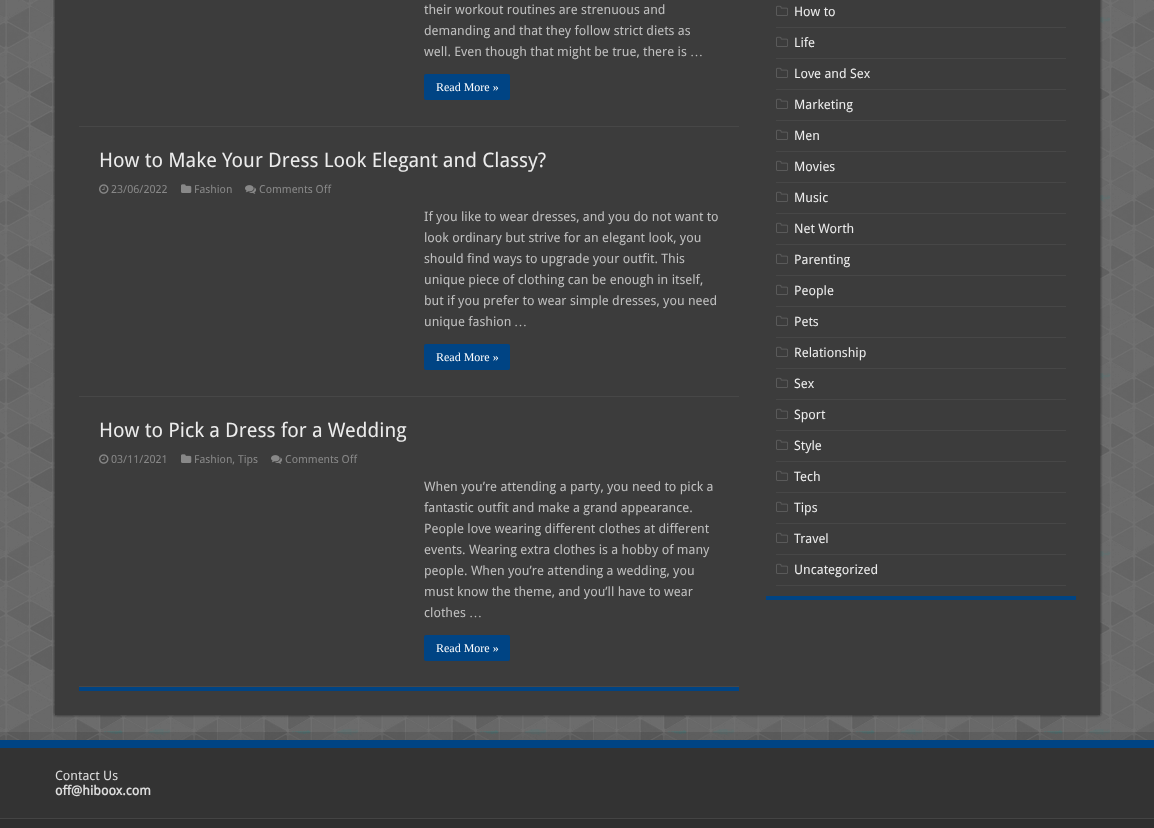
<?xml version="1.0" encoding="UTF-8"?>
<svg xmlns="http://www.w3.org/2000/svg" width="1154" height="828">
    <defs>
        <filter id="blur1" x="-50%" y="-200%" width="200%" height="500%"><feGaussianBlur stdDeviation="1.5"/></filter>
    </defs>
    <rect width="100%" height="100%" fill="#000000"/>
    <image x="0" y="0" width="1154" height="740" href="img_01.png"/>
    <rect x="55" y="-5" width="1045" height="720" fill="#141414" filter="url(#blur1)"/>
    <rect x="55" y="0" width="1045" height="715" fill="#3C3C3C"/>
    <rect x="79" y="687" width="660" height="4" fill="#004484"/>
    <rect x="79" y="126" width="660" height="1" fill="#474747"/>
    <text font-family="Droid Sans" font-size="13" fill="#BFBFBF">
        <tspan x="424" y="14">their workout routines are strenuous and</tspan>
        <tspan x="424" y="35">demanding and that they follow strict diets as</tspan>
        <tspan x="424" y="56">well. Even though that might be true, there is</tspan>
    </text>
    <text x="690" y="56" font-family="Liberation Serif" font-size="13" fill="#BFBFBF">…</text>
    <rect x="424" y="74" width="86" height="26" rx="2" fill="#004484"/>
    <text x="436" y="91" font-family="Liberation Serif" font-size="12" fill="#FFFFFF">Read More »</text>
    <rect x="79" y="396" width="660" height="1" fill="#474747"/>
    <text x="99" y="167" font-family="Droid Sans" font-size="20" fill="#ECECEC">How to Make Your Dress Look Elegant and Classy?</text>
    <image x="99" y="184" width="10" height="10" href="img_02.png"/>
    <text x="111" y="193" font-family="Droid Sans" font-size="11" fill="#888888">23/06/2022</text>
    <image x="181" y="184" width="11" height="9" href="img_03.png"/>
    <text x="194" y="193" font-family="Droid Sans" font-size="11" fill="#888888">Fashion</text>
    <image x="245" y="185" width="11" height="9" href="img_04.png"/>
    <text x="259" y="193" font-family="Droid Sans" font-size="11" fill="#888888">Comments Off</text>
    <text font-family="Droid Sans" font-size="13" fill="#BFBFBF">
        <tspan x="424" y="221">If you like to wear dresses, and you do not want to</tspan>
        <tspan x="424" y="242">look ordinary but strive for an elegant look, you</tspan>
        <tspan x="424" y="263">should find ways to upgrade your outfit. This</tspan>
        <tspan x="424" y="284">unique piece of clothing can be enough in itself,</tspan>
        <tspan x="424" y="305">but if you prefer to wear simple dresses, you need</tspan>
        <tspan x="424" y="326">unique fashion</tspan>
    </text>
    <text x="514" y="326" font-family="Liberation Serif" font-size="13" fill="#BFBFBF">…</text>
    <rect x="424" y="344" width="86" height="26" rx="2" fill="#004484"/>
    <text x="436" y="361" font-family="Liberation Serif" font-size="12" fill="#FFFFFF">Read More »</text>
    <rect x="79" y="686" width="660" height="1" fill="#474747"/>
    <text x="99" y="437" font-family="Droid Sans" font-size="20" fill="#ECECEC">How to Pick a Dress for a Wedding</text>
    <image x="99" y="454" width="10" height="10" href="img_02.png"/>
    <text x="111" y="463" font-family="Droid Sans" font-size="11" fill="#888888">03/11/2021</text>
    <image x="181" y="454" width="11" height="9" href="img_03.png"/>
    <text x="194" y="463" font-family="Droid Sans" font-size="11" fill="#888888">Fashion, Tips</text>
    <image x="271" y="455" width="11" height="9" href="img_04.png"/>
    <text x="285" y="463" font-family="Droid Sans" font-size="11" fill="#888888">Comments Off</text>
    <text font-family="Droid Sans" font-size="13" fill="#BFBFBF">
        <tspan x="424" y="491">When you’re attending a party, you need to pick a</tspan>
        <tspan x="424" y="512">fantastic outfit and make a grand appearance.</tspan>
        <tspan x="424" y="533">People love wearing different clothes at different</tspan>
        <tspan x="424" y="554">events. Wearing extra clothes is a hobby of many</tspan>
        <tspan x="424" y="575">people. When you’re attending a wedding, you</tspan>
        <tspan x="424" y="596">must know the theme, and you’ll have to wear</tspan>
        <tspan x="424" y="617">clothes</tspan>
    </text>
    <text x="469" y="617" font-family="Liberation Serif" font-size="13" fill="#BFBFBF">…</text>
    <rect x="424" y="635" width="86" height="26" rx="2" fill="#004484"/>
    <text x="436" y="652" font-family="Liberation Serif" font-size="12" fill="#FFFFFF">Read More »</text>
    <rect x="766" y="596" width="310" height="4" fill="#004484"/>
    <rect x="776" y="27" width="290" height="1" fill="#474747"/>
    <image x="776" y="5" width="12" height="11" href="img_05.png"/>
    <text x="794" y="16" font-family="Droid Sans" font-size="13" fill="#ECECEC">How to</text>
    <rect x="776" y="58" width="290" height="1" fill="#474747"/>
    <image x="776" y="36" width="12" height="11" href="img_05.png"/>
    <text x="794" y="47" font-family="Droid Sans" font-size="13" fill="#ECECEC">Life</text>
    <rect x="776" y="89" width="290" height="1" fill="#474747"/>
    <image x="776" y="67" width="12" height="11" href="img_05.png"/>
    <text x="794" y="78" font-family="Droid Sans" font-size="13" fill="#ECECEC">Love and Sex</text>
    <rect x="776" y="120" width="290" height="1" fill="#474747"/>
    <image x="776" y="98" width="12" height="11" href="img_05.png"/>
    <text x="794" y="109" font-family="Droid Sans" font-size="13" fill="#ECECEC">Marketing</text>
    <rect x="776" y="151" width="290" height="1" fill="#474747"/>
    <image x="776" y="129" width="12" height="11" href="img_05.png"/>
    <text x="794" y="140" font-family="Droid Sans" font-size="13" fill="#ECECEC">Men</text>
    <rect x="776" y="182" width="290" height="1" fill="#474747"/>
    <image x="776" y="160" width="12" height="11" href="img_05.png"/>
    <text x="794" y="171" font-family="Droid Sans" font-size="13" fill="#ECECEC">Movies</text>
    <rect x="776" y="213" width="290" height="1" fill="#474747"/>
    <image x="776" y="191" width="12" height="11" href="img_05.png"/>
    <text x="794" y="202" font-family="Droid Sans" font-size="13" fill="#ECECEC">Music</text>
    <rect x="776" y="244" width="290" height="1" fill="#474747"/>
    <image x="776" y="222" width="12" height="11" href="img_05.png"/>
    <text x="794" y="233" font-family="Droid Sans" font-size="13" fill="#ECECEC">Net Worth</text>
    <rect x="776" y="275" width="290" height="1" fill="#474747"/>
    <image x="776" y="253" width="12" height="11" href="img_05.png"/>
    <text x="794" y="264" font-family="Droid Sans" font-size="13" fill="#ECECEC">Parenting</text>
    <rect x="776" y="306" width="290" height="1" fill="#474747"/>
    <image x="776" y="284" width="12" height="11" href="img_05.png"/>
    <text x="794" y="295" font-family="Droid Sans" font-size="13" fill="#ECECEC">People</text>
    <rect x="776" y="337" width="290" height="1" fill="#474747"/>
    <image x="776" y="315" width="12" height="11" href="img_05.png"/>
    <text x="794" y="326" font-family="Droid Sans" font-size="13" fill="#ECECEC">Pets</text>
    <rect x="776" y="368" width="290" height="1" fill="#474747"/>
    <image x="776" y="346" width="12" height="11" href="img_05.png"/>
    <text x="794" y="357" font-family="Droid Sans" font-size="13" fill="#ECECEC">Relationship</text>
    <rect x="776" y="399" width="290" height="1" fill="#474747"/>
    <image x="776" y="377" width="12" height="11" href="img_05.png"/>
    <text x="794" y="388" font-family="Droid Sans" font-size="13" fill="#ECECEC">Sex</text>
    <rect x="776" y="430" width="290" height="1" fill="#474747"/>
    <image x="776" y="408" width="12" height="11" href="img_05.png"/>
    <text x="794" y="419" font-family="Droid Sans" font-size="13" fill="#ECECEC">Sport</text>
    <rect x="776" y="461" width="290" height="1" fill="#474747"/>
    <image x="776" y="439" width="12" height="11" href="img_05.png"/>
    <text x="794" y="450" font-family="Droid Sans" font-size="13" fill="#ECECEC">Style</text>
    <rect x="776" y="492" width="290" height="1" fill="#474747"/>
    <image x="776" y="470" width="12" height="11" href="img_05.png"/>
    <text x="794" y="481" font-family="Droid Sans" font-size="13" fill="#ECECEC">Tech</text>
    <rect x="776" y="523" width="290" height="1" fill="#474747"/>
    <image x="776" y="501" width="12" height="11" href="img_05.png"/>
    <text x="794" y="512" font-family="Droid Sans" font-size="13" fill="#ECECEC">Tips</text>
    <rect x="776" y="554" width="290" height="1" fill="#474747"/>
    <image x="776" y="532" width="12" height="11" href="img_05.png"/>
    <text x="794" y="543" font-family="Droid Sans" font-size="13" fill="#ECECEC">Travel</text>
    <rect x="776" y="585" width="290" height="1" fill="#474747"/>
    <image x="776" y="563" width="12" height="11" href="img_05.png"/>
    <text x="794" y="574" font-family="Droid Sans" font-size="13" fill="#ECECEC">Uncategorized</text>
    <rect x="0" y="732" width="1154" height="8" fill="#000000" fill-opacity="0.1"/>
    <rect x="0" y="748" width="1154" height="70" fill="#333333"/>
    <rect x="0" y="740" width="1154" height="8" fill="#004484"/>
    <text x="55" y="780" font-family="Droid Sans" font-size="13" fill="#DDDDDD">Contact Us</text>
    <text x="55" y="795" font-family="Droid Sans" font-size="13" font-weight="700" fill="#DDDDDD">off@hiboox.com</text>
    <rect x="0" y="819" width="1154" height="9" fill="#2E2E2E"/>
    <rect x="0" y="818" width="1154" height="1" fill="#444444"/>
</svg>
